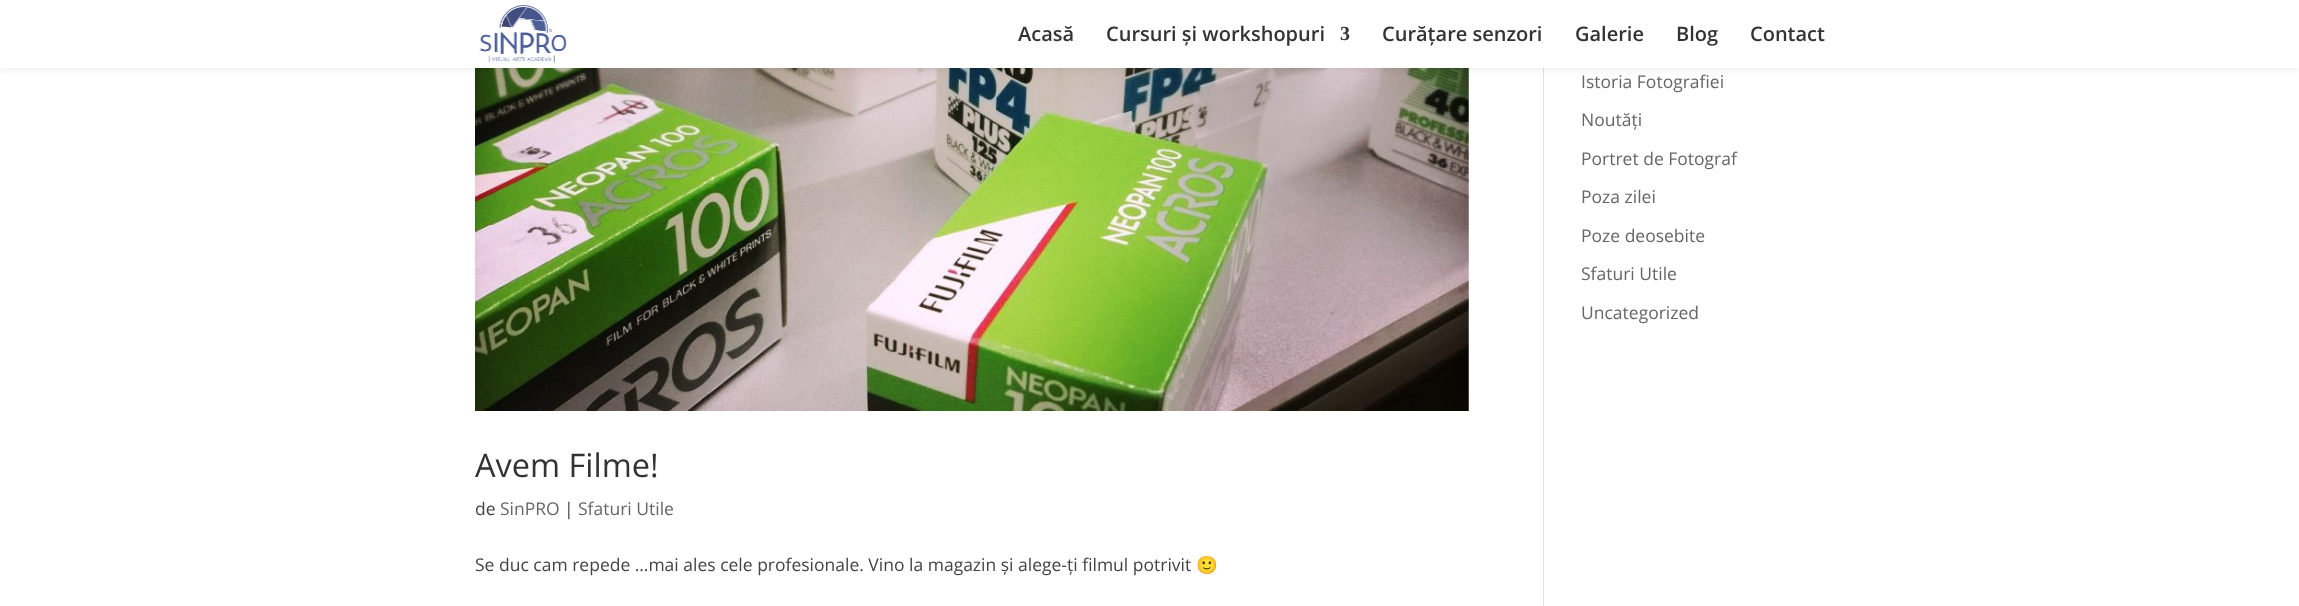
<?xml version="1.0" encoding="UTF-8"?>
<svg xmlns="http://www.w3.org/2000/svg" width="2299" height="606">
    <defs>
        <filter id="blur1" x="-50%" y="-200%" width="200%" height="500%"><feGaussianBlur stdDeviation="4.5"/></filter>
    </defs>
    <rect width="100%" height="100%" fill="#FFFFFF"/>
    <rect x="1543" y="68" width="1" height="538" fill="#E2E2E2"/>
    <image x="475" y="68" width="994" height="343" href="img_02.png"/>
    <rect x="0" y="0" width="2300" height="68" fill="#000000" fill-opacity="0.1" filter="url(#blur1)"/>
    <rect x="0" y="0" width="2299" height="68" fill="#FFFFFF"/>
    <image x="479" y="5" width="88" height="58" href="img_01.png"/>
    <text x="1018" y="41" font-family="Open Sans" font-size="20" font-weight="600" fill="#333333">Acasă</text>
    <text x="1106" y="41" font-family="Open Sans" font-size="20" font-weight="600" fill="#333333">Cursuri și workshopuri</text>
    <text x="1340" y="40" font-family="Liberation Serif" font-size="20" font-weight="700" fill="#333333">3</text>
    <text x="1382" y="41" font-family="Open Sans" font-size="20" font-weight="600" fill="#333333">Curățare senzori</text>
    <text x="1575" y="41" font-family="Open Sans" font-size="20" font-weight="600" fill="#333333">Galerie</text>
    <text x="1676" y="41" font-family="Open Sans" font-size="20" font-weight="600" fill="#333333">Blog</text>
    <text x="1750" y="41" font-family="Open Sans" font-size="20" font-weight="600" fill="#333333">Contact</text>
    <text x="1581" y="88" font-family="Open Sans" font-size="17.5" fill="#666666">Istoria Fotografiei</text>
    <text x="1581" y="126" font-family="Open Sans" font-size="17.5" fill="#666666">Noutăți</text>
    <text x="1581" y="165" font-family="Open Sans" font-size="17.5" fill="#666666">Portret de Fotograf</text>
    <text x="1581" y="203" font-family="Open Sans" font-size="17.5" fill="#666666">Poza zilei</text>
    <text x="1581" y="242" font-family="Open Sans" font-size="17.5" fill="#666666">Poze deosebite</text>
    <text x="1581" y="280" font-family="Open Sans" font-size="17.5" fill="#666666">Sfaturi Utile</text>
    <text x="1581" y="319" font-family="Open Sans" font-size="17.5" fill="#666666">Uncategorized</text>
    <text x="475" y="477" font-family="Open Sans" font-size="32.5" fill="#333333">Avem Filme!</text>
    <text x="475" y="515" font-family="Open Sans" font-size="17.5" fill="#444444">de</text>
    <text x="500" y="515" font-family="Open Sans" font-size="17.5" fill="#666666">SinPRO</text>
    <text x="564" y="515" font-family="Open Sans" font-size="17.5" fill="#444444">|</text>
    <text x="578" y="515" font-family="Open Sans" font-size="17.5" fill="#666666">Sfaturi Utile</text>
    <text x="475" y="571" font-family="Open Sans" font-size="17.5" fill="#444444">Se duc cam repede …mai ales cele profesionale. Vino la magazin și alege-ți filmul potrivit</text>
    <text x="1196" y="571" font-family="Noto Color Emoji" font-size="17.5" fill="#444444">🙂</text>
</svg>
